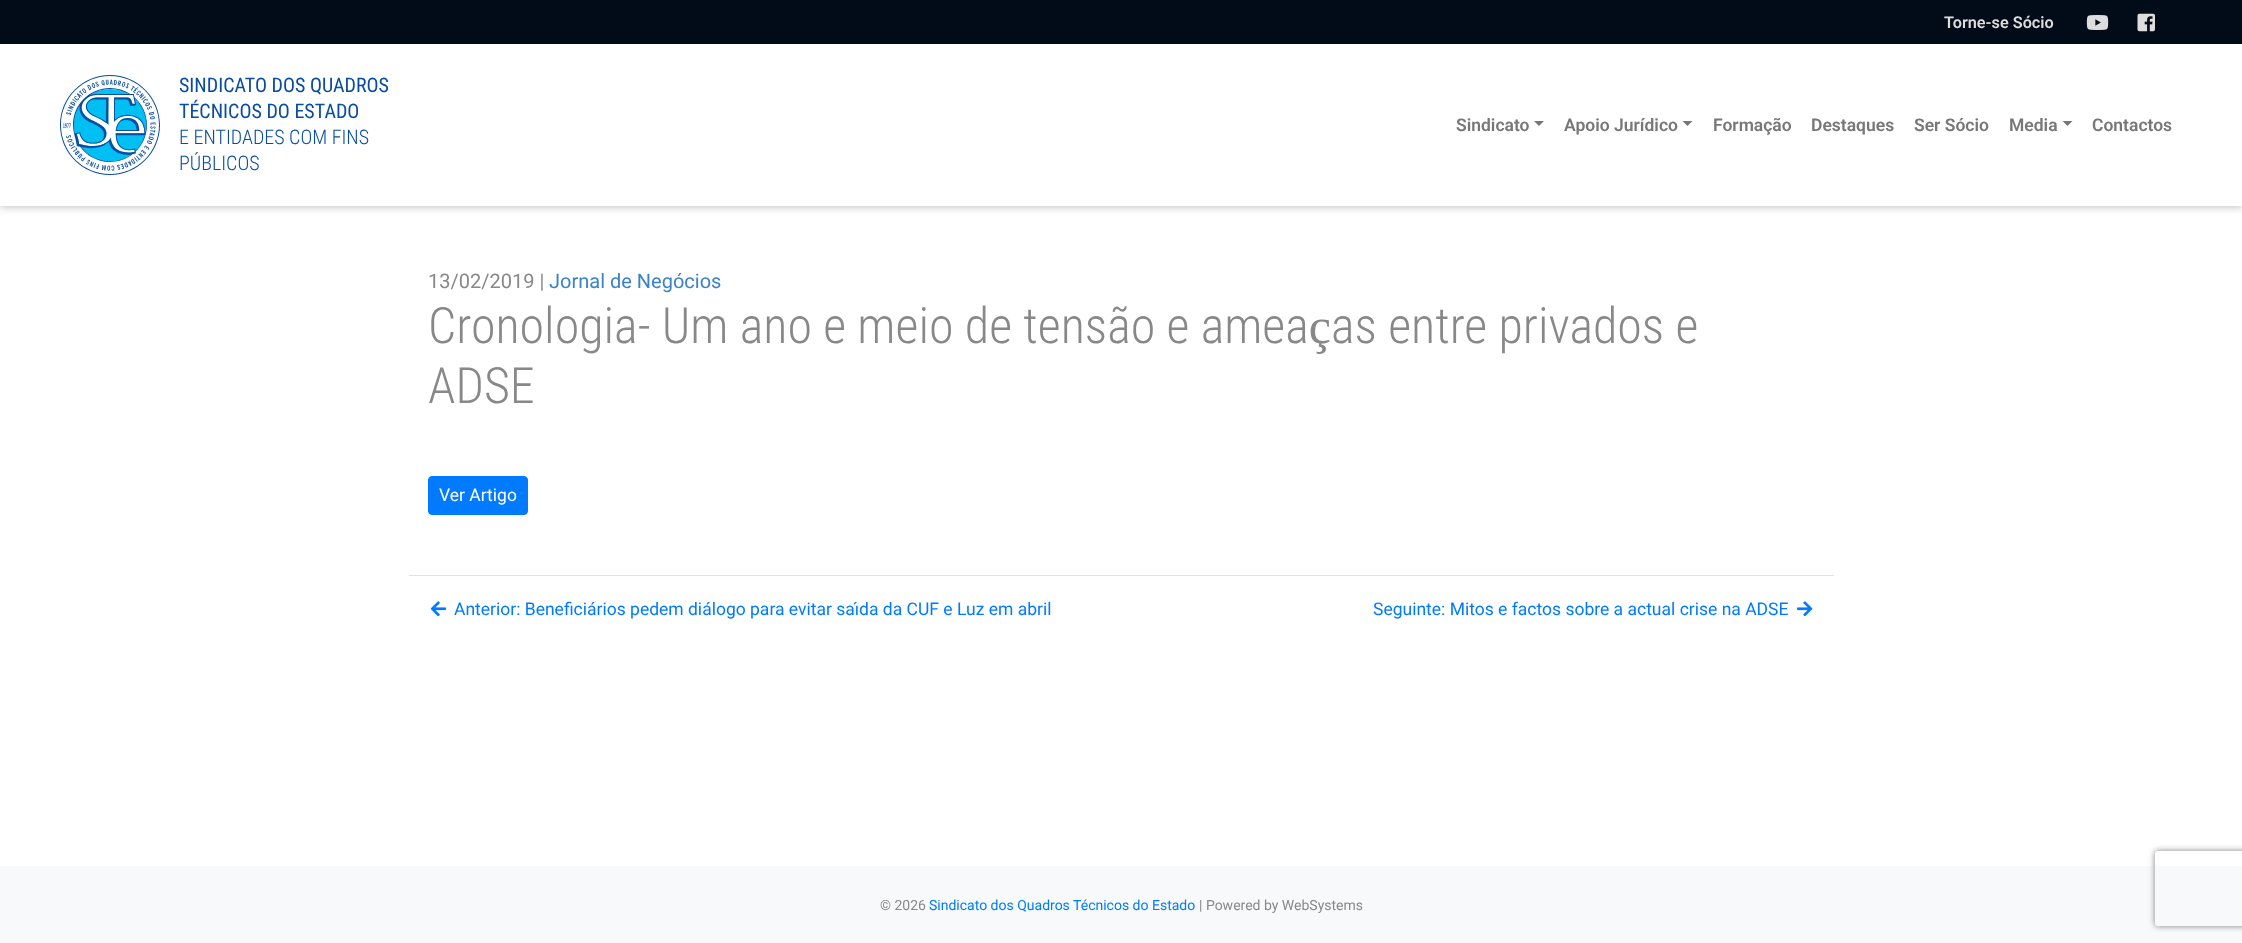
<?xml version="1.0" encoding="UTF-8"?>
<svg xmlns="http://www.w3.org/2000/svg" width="2242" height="943">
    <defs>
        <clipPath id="clip1"><path d="M 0 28 H 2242 V 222 H 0 Z M 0 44 H 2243 V 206 H 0 Z" clip-rule="evenodd"/></clipPath>
        <filter id="blur1" x="-50%" y="-200%" width="200%" height="500%"><feGaussianBlur stdDeviation="5"/></filter>
        <clipPath id="clip2"><path d="M 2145 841 H 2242 V 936 H 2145 Z M 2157.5 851 H 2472.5 C 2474 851 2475 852 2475 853.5 V 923.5 C 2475 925 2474 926 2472.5 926 H 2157.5 C 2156 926 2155 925 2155 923.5 V 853.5 C 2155 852 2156 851 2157.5 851 Z" clip-rule="evenodd"/></clipPath>
        <filter id="blur2" x="-50%" y="-200%" width="200%" height="500%"><feGaussianBlur stdDeviation="3"/></filter>
    </defs>
    <rect width="100%" height="100%" fill="#FFFFFF"/>
    <rect x="0" y="0" width="2242" height="44" fill="#010C18"/>
    <text x="1944" y="28" font-family="Roboto" font-size="16.25" font-weight="600" fill="#DDDDDD">Torne-se Sócio</text>
    <image x="2086" y="15" width="23" height="15" href="img_01.png"/>
    <image x="2137" y="13" width="18" height="19" href="img_02.png"/>
    <g clip-path="url(#clip1)">
        <rect x="0" y="44" width="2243" height="162" fill="#000000" fill-opacity="0.3" filter="url(#blur1)"/>
    </g>
    <image x="60" y="75" width="100" height="100" href="img_03.png"/>
    <text font-family="Roboto Condensed" font-size="20" fill="#094CA0">
        <tspan x="179" y="92">SINDICATO DOS QUADROS</tspan>
        <tspan x="179" y="118">TÉCNICOS DO ESTADO</tspan>
    </text>
    <text font-family="Roboto Condensed" font-size="20" font-weight="300" fill="#094CA0">
        <tspan x="179" y="144">E ENTIDADES COM FINS</tspan>
        <tspan x="179" y="170">PÚBLICOS</tspan>
    </text>
    <text x="1456" y="131" font-family="Roboto" font-size="17.5" font-weight="600" fill="#777777">Sindicato</text>
    <path d="M 1534 121 H 1544 L 1539 126 Z" fill="#777777"/>
    <text x="1564" y="131" font-family="Roboto" font-size="17.5" font-weight="600" fill="#777777">Apoio Jurídico</text>
    <path d="M 1682.5 121 H 1692.5 L 1687.5 126 Z" fill="#777777"/>
    <text x="1713" y="131" font-family="Roboto" font-size="17.5" font-weight="600" fill="#777777">Formação</text>
    <text x="1811" y="131" font-family="Roboto" font-size="17.5" font-weight="600" fill="#777777">Destaques</text>
    <text x="1914" y="131" font-family="Roboto" font-size="17.5" font-weight="600" fill="#777777">Ser Sócio</text>
    <text x="2009" y="131" font-family="Roboto" font-size="17.5" font-weight="600" fill="#777777">Media</text>
    <path d="M 2062.5 121 H 2072.5 L 2067.5 126 Z" fill="#777777"/>
    <text x="2092" y="131" font-family="Roboto" font-size="17.5" font-weight="600" fill="#777777">Contactos</text>
    <text x="428" y="288" font-family="Roboto" font-size="20" fill="#888888">13/02/2019 |</text>
    <text x="549" y="288" font-family="Roboto" font-size="20" fill="#3B82CA">Jornal de Negócios</text>
    <text font-family="Roboto Condensed" font-size="50" font-weight="300" fill="#888888">
        <tspan x="428" y="343">Cronologia- Um ano e meio de tensão e ameaças entre privados e</tspan>
        <tspan x="428" y="403">ADSE</tspan>
    </text>
    <rect x="428.5" y="476.5" width="99" height="38" rx="3.5" fill="#007BFF" stroke="#007BFF"/>
    <text x="439" y="501" font-family="Roboto" font-size="17.5" fill="#FFFFFF">Ver Artigo</text>
    <rect x="409" y="575" width="1425" height="1" fill="#DEE2E6"/>
    <image x="430" y="601" width="17" height="16" href="img_04.png"/>
    <text x="454" y="615" font-family="Roboto" font-size="17.5" fill="#007BFF">Anterior: Beneficiários pedem diálogo para evitar saída da CUF e Luz em abril</text>
    <text x="1373" y="615" font-family="Roboto" font-size="17.5" fill="#007BFF">Seguinte: Mitos e factos sobre a actual crise na ADSE</text>
    <image x="1797" y="601" width="16" height="16" href="img_05.png"/>
    <rect x="0" y="866" width="2242" height="77" fill="#F8F9FA"/>
    <text x="880" y="910" font-family="Roboto" font-size="14" fill="#888888">© 2026</text>
    <text x="929" y="910" font-family="Roboto" font-size="14" fill="#007BFF">Sindicato dos Quadros Técnicos do Estado</text>
    <text x="1199" y="910" font-family="Roboto" font-size="14" fill="#888888">| Powered by WebSystems</text>
    <g clip-path="url(#clip2)">
        <rect x="2155" y="851" width="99" height="75" rx="2.5" fill="#808080" filter="url(#blur2)"/>
    </g>
</svg>
